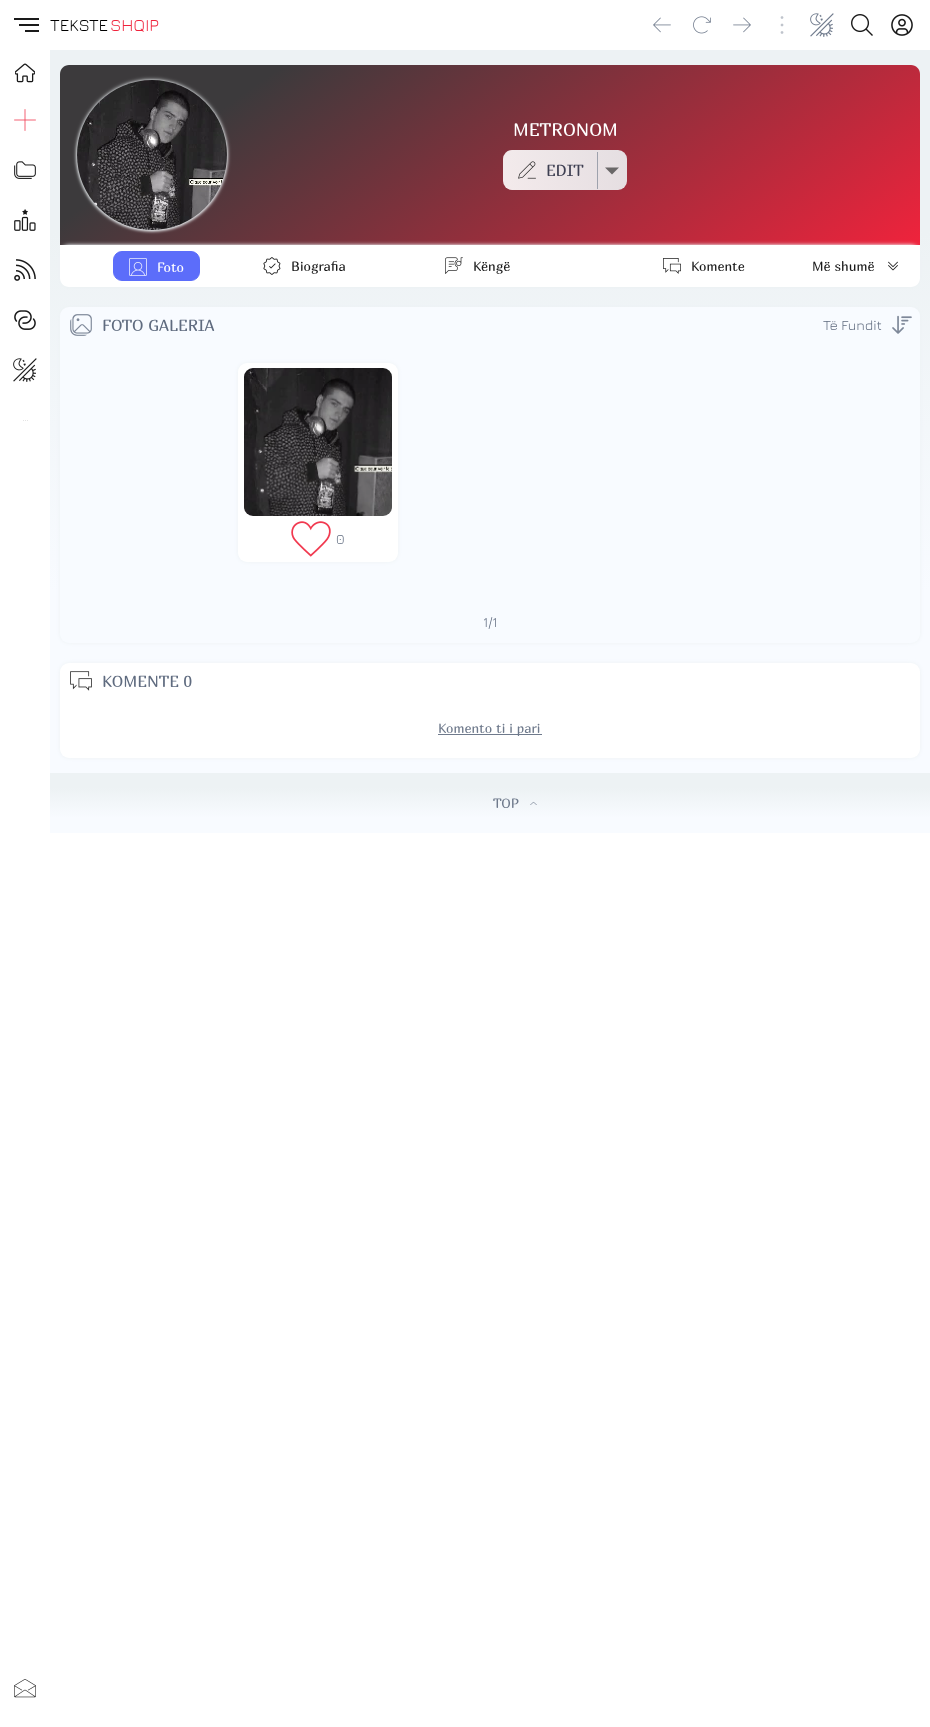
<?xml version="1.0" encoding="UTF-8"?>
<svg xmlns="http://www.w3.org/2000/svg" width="930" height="1727">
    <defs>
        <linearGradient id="g1" gradientUnits="userSpaceOnUse" x1="490" y1="50" x2="490" y2="773"><stop offset="0.25" stop-color="#EDF2F4"/><stop offset="0.75" stop-color="#F8FBFF"/><stop offset="1" stop-color="#F8FBFF"/></linearGradient>
        <linearGradient id="g2" gradientUnits="userSpaceOnUse" x1="306" y1="-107" x2="674" y2="417"><stop offset="0.2" stop-color="#3C3A3C"/><stop offset="1" stop-color="#EF233C"/></linearGradient>
        <filter id="blur1" x="-50%" y="-200%" width="200%" height="500%"><feGaussianBlur stdDeviation="2"/></filter>
        <filter id="blur2" x="-50%" y="-200%" width="200%" height="500%"><feGaussianBlur stdDeviation="1.5"/></filter>
        <linearGradient id="g3" gradientUnits="userSpaceOnUse" x1="503" y1="170" x2="627" y2="170"><stop offset="0" stop-color="#FFFFFF" stop-opacity="0.9"/><stop offset="1" stop-color="#EDF2F4" stop-opacity="0.9"/></linearGradient>
        <linearGradient id="g4" gradientUnits="userSpaceOnUse" x1="490" y1="773" x2="490" y2="833"><stop offset="0.25" stop-color="#EDF2F4"/><stop offset="0.75" stop-color="#F8FBFF"/><stop offset="1" stop-color="#F8FBFF"/></linearGradient>
    </defs>
    <rect width="100%" height="100%" fill="#FFFFFF"/>
    <rect x="14" y="18" width="25" height="2" fill="#1A1A1A"/>
    <rect x="19" y="24" width="20" height="2" fill="#1A1A1A"/>
    <rect x="25" y="30" width="14" height="2" fill="#1A1A1A"/>
    <text x="50" y="31" font-family="Jura" font-size="17" font-weight="300" fill="#000000">TEKSTE</text>
    <text x="110" y="31" font-family="Jura" font-size="17" font-weight="300" fill="#EF233C">SHQIP</text>
    <image x="653" y="17" width="18" height="16" href="img_01.png"/>
    <image x="693" y="16" width="18" height="18" href="img_02.png"/>
    <image x="733" y="17" width="18" height="16" href="img_03.png"/>
    <image x="780" y="16" width="4" height="18" href="img_04.png"/>
    <image x="810" y="13" width="24" height="24" href="img_05.png"/>
    <image x="851" y="14" width="22" height="22" href="img_06.png"/>
    <image x="891" y="14" width="22" height="22" href="img_07.png"/>
    <image x="15" y="63" width="20" height="20" href="img_08.png"/>
    <image x="14" y="109" width="22" height="22" href="img_09.png"/>
    <image x="14" y="161" width="22" height="18" href="img_10.png"/>
    <image x="14" y="209" width="22" height="22" href="img_11.png"/>
    <image x="14" y="259" width="22" height="22" href="img_12.png"/>
    <image x="14" y="310" width="22" height="20" href="img_13.png"/>
    <image x="13" y="358" width="24" height="24" href="img_14.png"/>
    <image x="23" y="420" width="5" height="1" href="img_15.png"/>
    <image x="14" y="1679" width="22" height="19" href="img_16.png"/>
    <rect x="50" y="50" width="880" height="723" fill="url(#g1)"/>
    <path d="M 69 65 H 911 C 916 65 920 69 920 74 V 245 H 60 V 74 C 60 69 64 65 69 65 Z" fill="url(#g2)"/>
    <rect x="77" y="80" width="150" height="150" rx="75" fill="#EDF2F4" filter="url(#blur1)"/>
    <rect x="77" y="81" width="150" height="150" rx="75" fill="#EDF2F4" filter="url(#blur2)"/>
    <image x="77" y="80" width="150" height="150" href="img_17.png"/>
    <text x="513" y="136" font-family="Marmelad" font-size="18" fill="#FFFFFF">METRONOM</text>
    <rect x="503" y="150" width="124" height="40" rx="9" fill="url(#g3)"/>
    <image x="518" y="161" width="18" height="18" href="img_18.png"/>
    <text x="546" y="176" font-family="Marmelad" font-size="16" fill="#3E3F52">EDIT</text>
    <rect x="597" y="152" width="1" height="37" fill="#9EA2AD"/>
    <path d="M 605 167.5 L 612 174.5 L 619 167.5 Z" fill="#6A6768"/>
    <rect x="60" y="245" width="860" height="42" rx="9" fill="#EDF2F4" filter="url(#blur1)"/>
    <rect x="60" y="246" width="860" height="42" rx="9" fill="#EDF2F4" filter="url(#blur2)"/>
    <path d="M 60 245 H 920 V 278 C 920 283 916 287 911 287 H 69 C 64 287 60 283 60 278 Z" fill="#FFFFFF"/>
    <rect x="113.5" y="251.5" width="86" height="29" rx="8.5" fill="#5C6DFA" stroke="#5C6DFA"/>
    <image x="129" y="258" width="18" height="18" href="img_19.png"/>
    <text x="157" y="272" font-family="Marmelad" font-size="13.25" fill="#FFFFFF">Foto</text>
    <image x="263" y="257" width="18" height="18" href="img_20.png"/>
    <text x="291" y="271" font-family="Marmelad" font-size="13.25" fill="#1A1A1A">Biografia</text>
    <image x="445" y="257" width="18" height="17" href="img_21.png"/>
    <text x="473" y="271" font-family="Marmelad" font-size="13.25" fill="#1A1A1A">Këngë</text>
    <image x="663" y="258" width="18" height="16" href="img_22.png"/>
    <text x="691" y="271" font-family="Marmelad" font-size="13.25" fill="#1A1A1A">Komente</text>
    <text x="812" y="271" font-family="Marmelad" font-size="13.25" fill="#1A1A1A">Më shumë</text>
    <image x="888" y="261" width="10" height="10" href="img_23.png"/>
    <rect x="60" y="307" width="860" height="336" rx="9" fill="#EDF2F4" filter="url(#blur1)"/>
    <rect x="60" y="307" width="860" height="336" rx="9" fill="#F8FBFF"/>
    <image x="70" y="314" width="22" height="22" href="img_24.png"/>
    <text x="102" y="331" font-family="Marmelad" font-size="16" fill="#5F6B7F">FOTO GALERIA</text>
    <text x="823" y="330" font-family="Jura" font-size="14" font-weight="300" fill="#5F6B7F">Të Fundit</text>
    <image x="892" y="315" width="20" height="19" href="img_25.png"/>
    <rect x="238" y="363" width="160" height="199" rx="9" fill="#EDF2F4" filter="url(#blur1)"/>
    <rect x="238" y="363" width="160" height="199" rx="9" fill="#FFFFFF"/>
    <image x="244" y="368" width="148" height="148" href="img_26.png"/>
    <image x="291" y="521" width="40" height="36" href="img_27.png"/>
    <text x="336" y="544" font-family="Jura" font-size="14" font-weight="300" fill="#5F6B7F">0</text>
    <text x="483" y="627" font-family="Jura" font-size="14" font-weight="300" fill="#5F6B7F">1/1</text>
    <rect x="60" y="663" width="860" height="95" rx="9" fill="#EDF2F4" filter="url(#blur1)"/>
    <rect x="60" y="663" width="860" height="95" rx="9" fill="#FFFFFF"/>
    <image x="70" y="671" width="22" height="20" href="img_28.png"/>
    <text x="102" y="687" font-family="Marmelad" font-size="16" fill="#5F6B7F">KOMENTE 0</text>
    <rect x="438" y="734" width="104" height="1" fill="#6F7A8C"/>
    <text x="438" y="733" font-family="Marmelad" font-size="13.25" fill="#6F7A8C">Komento ti i pari</text>
    <rect x="50" y="773" width="880" height="60" fill="url(#g4)"/>
    <text x="493" y="808" font-family="Marmelad" font-size="13.25" fill="#6F7A8C">TOP</text>
    <image x="530" y="801" width="7" height="4" href="img_29.png"/>
</svg>
